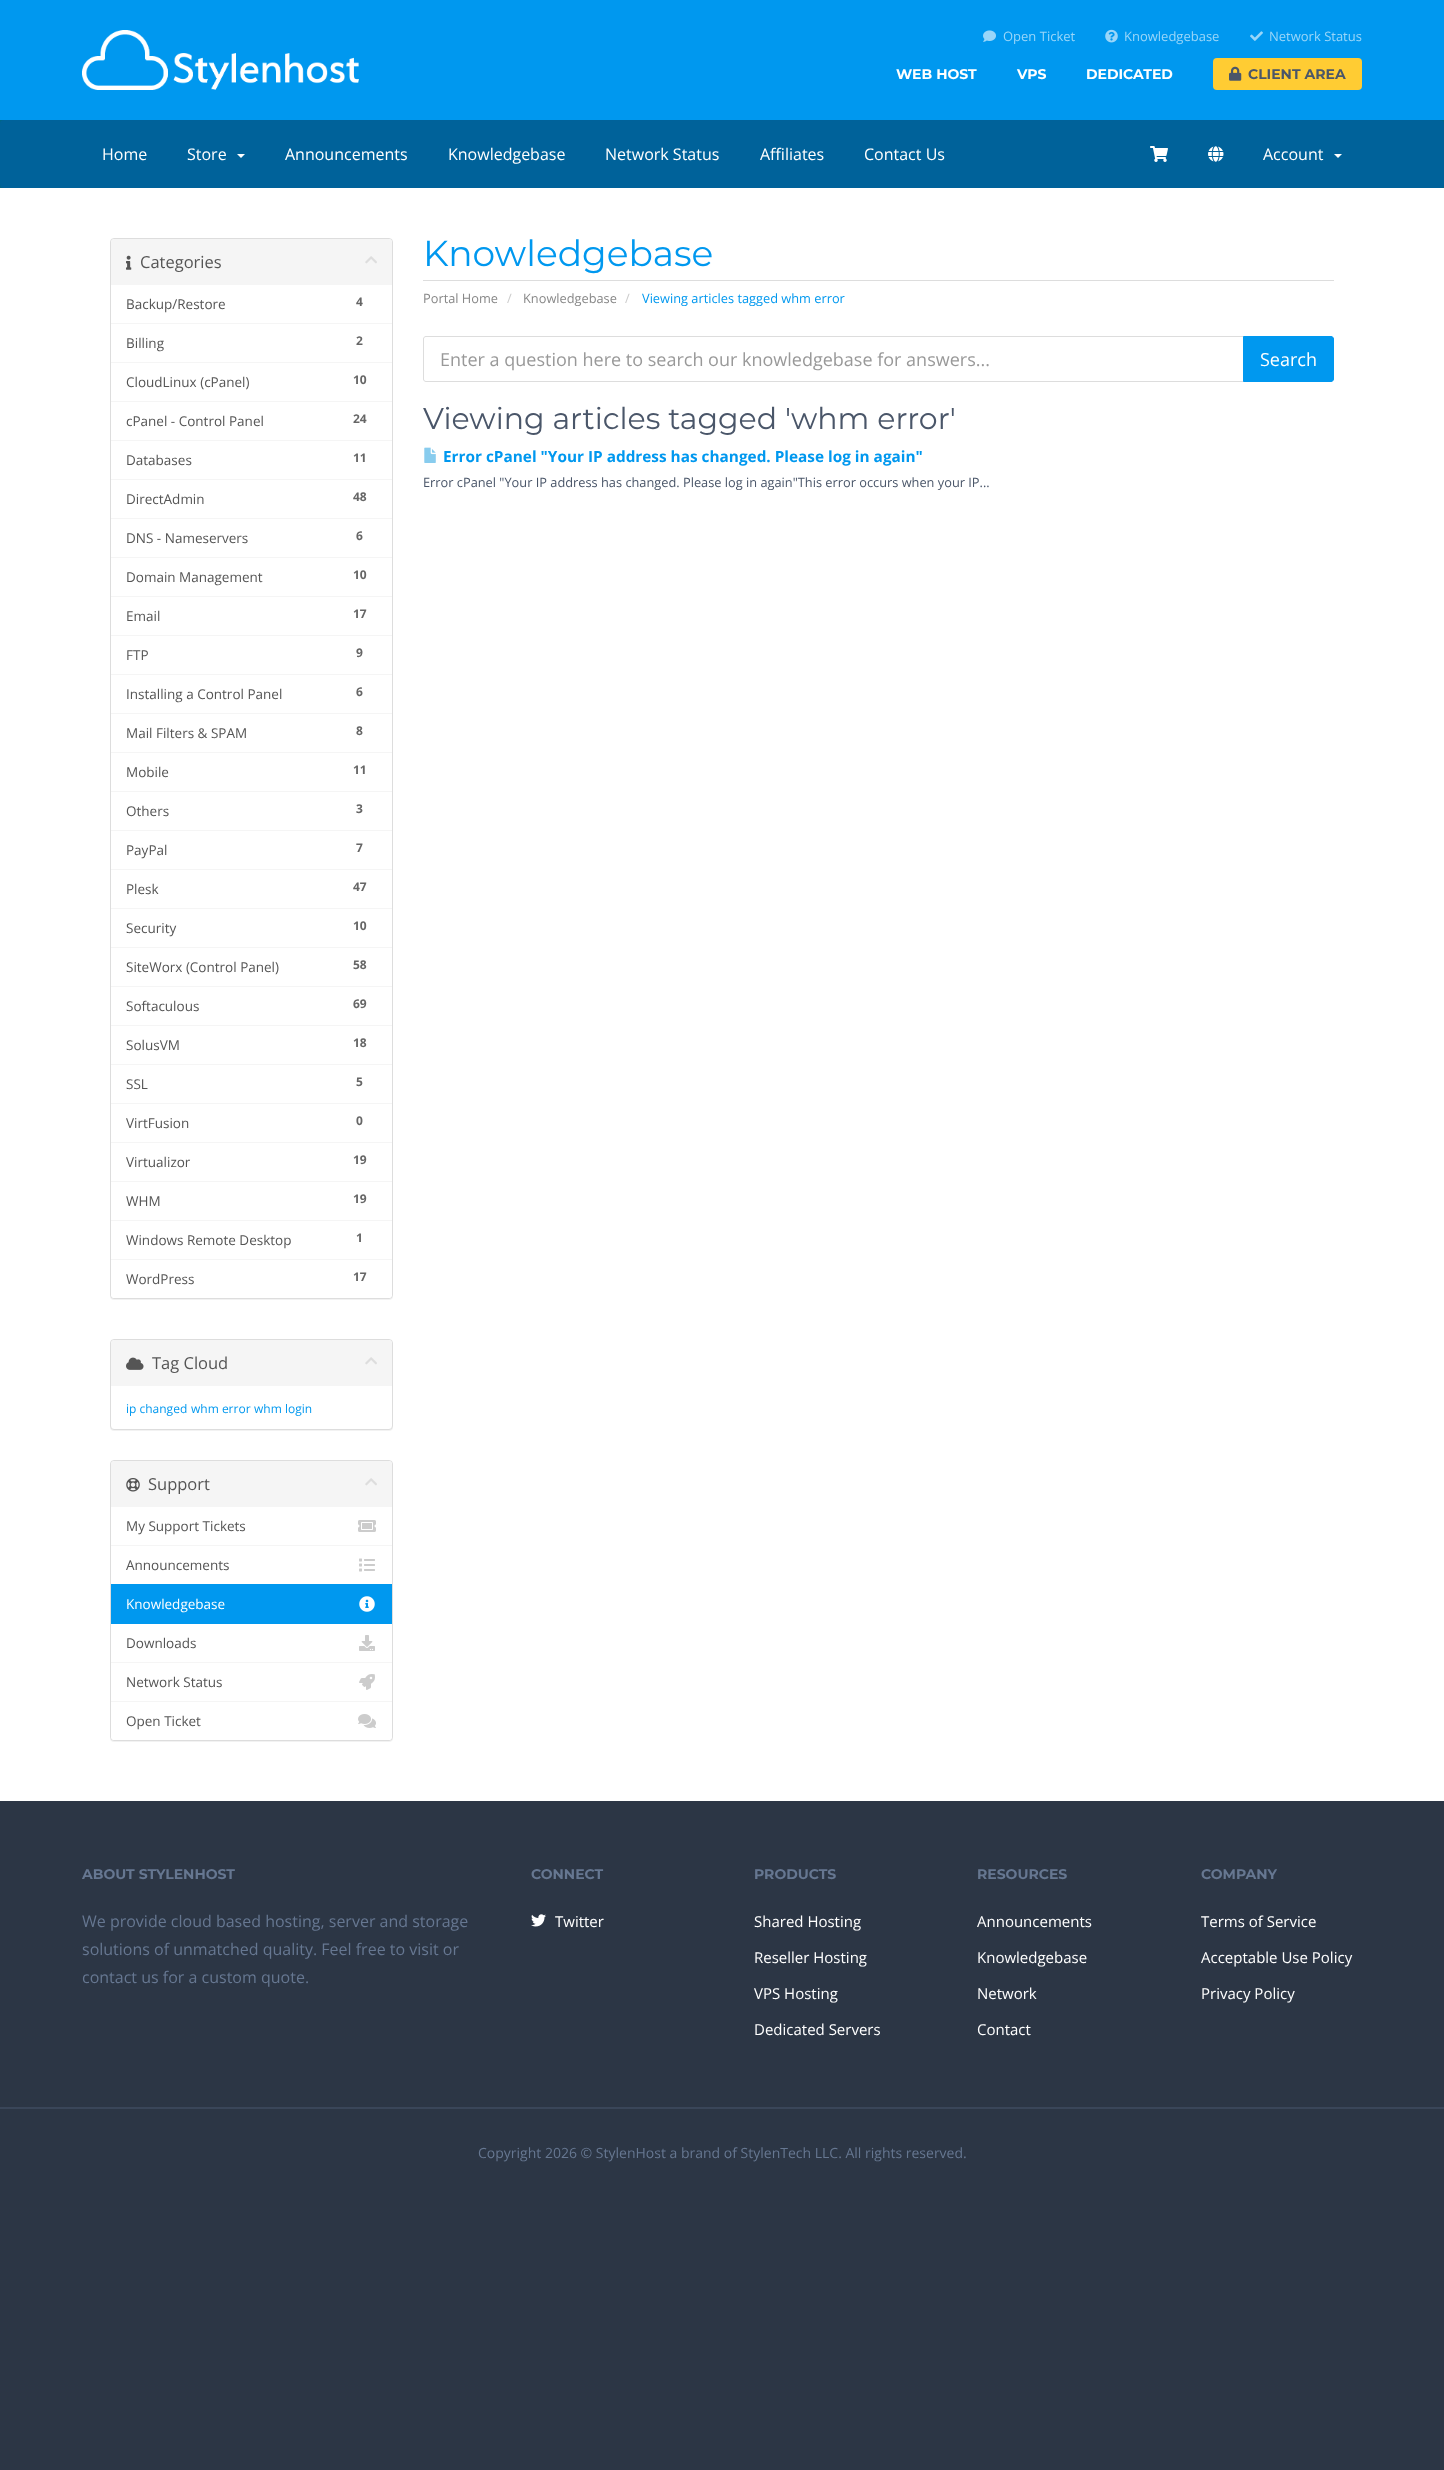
<?xml version="1.0" encoding="UTF-8"?>
<svg xmlns="http://www.w3.org/2000/svg" width="1444" height="2470">
    <defs>
        <filter id="blur1" x="-50%" y="-200%" width="200%" height="500%"><feGaussianBlur stdDeviation="0.5"/></filter>
    </defs>
    <rect width="100%" height="100%" fill="#2C3645"/>
    <rect x="0" y="0" width="1444" height="120" fill="#0098EF"/>
    <image x="82" y="30" width="277" height="60" href="img_01.png"/>
    <image x="983" y="30" width="13" height="12" href="img_02.png"/>
    <text x="1003" y="41" font-family="Open Sans" font-size="13" fill="#99D6F9">Open Ticket</text>
    <image x="1105" y="29" width="13" height="14" href="img_03.png"/>
    <text x="1124" y="41" font-family="Open Sans" font-size="13" fill="#99D6F9">Knowledgebase</text>
    <image x="1250" y="31" width="13" height="10" href="img_04.png"/>
    <text x="1269" y="41" font-family="Open Sans" font-size="13" fill="#99D6F9">Network Status</text>
    <text x="896" y="79" font-family="Montserrat" font-size="14" font-weight="700" fill="#FFFFFF">WEB HOST</text>
    <text x="1017" y="79" font-family="Montserrat" font-size="14" font-weight="700" fill="#FFFFFF">VPS</text>
    <text x="1086" y="79" font-family="Montserrat" font-size="14" font-weight="700" fill="#FFFFFF">DEDICATED</text>
    <rect x="1213" y="58" width="149" height="32" rx="4" fill="#FFCC33"/>
    <image x="1229" y="66" width="13" height="15" href="img_05.png"/>
    <text x="1248" y="79" font-family="Montserrat" font-size="14" font-weight="700" fill="#4A5669">CLIENT AREA</text>
    <rect x="0" y="120" width="1444" height="68" fill="#006687"/>
    <rect x="0" y="120" width="1444" height="68" rx="4" fill="#00629A"/>
    <text x="102" y="160" font-family="Open Sans" font-size="16" fill="#FFFFFF">Home</text>
    <text x="187" y="160" font-family="Open Sans" font-size="16" fill="#FFFFFF">Store</text>
    <path d="M 237 154 H 245 L 241 158 Z" fill="#FFFFFF"/>
    <text x="285" y="160" font-family="Open Sans" font-size="16" fill="#FFFFFF">Announcements</text>
    <text x="448" y="160" font-family="Open Sans" font-size="16" fill="#FFFFFF">Knowledgebase</text>
    <text x="605" y="160" font-family="Open Sans" font-size="16" fill="#FFFFFF">Network Status</text>
    <text x="760" y="160" font-family="Open Sans" font-size="16" fill="#FFFFFF">Affiliates</text>
    <text x="864" y="160" font-family="Open Sans" font-size="16" fill="#FFFFFF">Contact Us</text>
    <image x="1150" y="146" width="18" height="16" href="img_06.png"/>
    <image x="1208" y="146" width="16" height="16" href="img_07.png"/>
    <text x="1263" y="160" font-family="Open Sans" font-size="16" fill="#FFFFFF">Account</text>
    <path d="M 1334 154 H 1342 L 1338 158 Z" fill="#FFFFFF"/>
    <rect x="0" y="188" width="1444" height="1613" fill="#FFFFFF"/>
    <rect x="110" y="239" width="283" height="1061" rx="4" fill="#000000" fill-opacity="0.05" filter="url(#blur1)"/>
    <rect x="110.5" y="238.5" width="282" height="1060" rx="3.5" fill="#FFFFFF" stroke="#DDDDDD"/>
    <path d="M 114 239 H 389 C 390.5 239 392 240.5 392 242 V 285 H 111 V 242 C 111 240.5 112.5 239 114 239 Z" fill="#F5F5F5"/>
    <image x="126" y="255" width="6" height="15" href="img_08.png"/>
    <text x="140" y="268" font-family="Open Sans" font-size="16.5" fill="#555555">Categories</text>
    <image x="365" y="256" width="12" height="8" href="img_09.png"/>
    <rect x="111" y="323" width="281" height="1" fill="#F5F5F5"/>
    <text x="126" y="309" font-family="Open Sans" font-size="13.5" fill="#555555">Backup/Restore</text>
    <text x="356" y="306" font-family="Open Sans" font-size="12" font-weight="700" fill="#666666">4</text>
    <rect x="111" y="362" width="281" height="1" fill="#F5F5F5"/>
    <text x="126" y="348" font-family="Open Sans" font-size="13.5" fill="#555555">Billing</text>
    <text x="356" y="345" font-family="Open Sans" font-size="12" font-weight="700" fill="#666666">2</text>
    <rect x="111" y="401" width="281" height="1" fill="#F5F5F5"/>
    <text x="126" y="387" font-family="Open Sans" font-size="13.5" fill="#555555">CloudLinux (cPanel)</text>
    <text x="353" y="384" font-family="Open Sans" font-size="12" font-weight="700" fill="#666666">10</text>
    <rect x="111" y="440" width="281" height="1" fill="#F5F5F5"/>
    <text x="126" y="426" font-family="Open Sans" font-size="13.5" fill="#555555">cPanel - Control Panel</text>
    <text x="353" y="423" font-family="Open Sans" font-size="12" font-weight="700" fill="#666666">24</text>
    <rect x="111" y="479" width="281" height="1" fill="#F5F5F5"/>
    <text x="126" y="465" font-family="Open Sans" font-size="13.5" fill="#555555">Databases</text>
    <text x="353" y="462" font-family="Open Sans" font-size="12" font-weight="700" fill="#666666">11</text>
    <rect x="111" y="518" width="281" height="1" fill="#F5F5F5"/>
    <text x="126" y="504" font-family="Open Sans" font-size="13.5" fill="#555555">DirectAdmin</text>
    <text x="353" y="501" font-family="Open Sans" font-size="12" font-weight="700" fill="#666666">48</text>
    <rect x="111" y="557" width="281" height="1" fill="#F5F5F5"/>
    <text x="126" y="543" font-family="Open Sans" font-size="13.5" fill="#555555">DNS - Nameservers</text>
    <text x="356" y="540" font-family="Open Sans" font-size="12" font-weight="700" fill="#666666">6</text>
    <rect x="111" y="596" width="281" height="1" fill="#F5F5F5"/>
    <text x="126" y="582" font-family="Open Sans" font-size="13.5" fill="#555555">Domain Management</text>
    <text x="353" y="579" font-family="Open Sans" font-size="12" font-weight="700" fill="#666666">10</text>
    <rect x="111" y="635" width="281" height="1" fill="#F5F5F5"/>
    <text x="126" y="621" font-family="Open Sans" font-size="13.5" fill="#555555">Email</text>
    <text x="353" y="618" font-family="Open Sans" font-size="12" font-weight="700" fill="#666666">17</text>
    <rect x="111" y="674" width="281" height="1" fill="#F5F5F5"/>
    <text x="126" y="660" font-family="Open Sans" font-size="13.5" fill="#555555">FTP</text>
    <text x="356" y="657" font-family="Open Sans" font-size="12" font-weight="700" fill="#666666">9</text>
    <rect x="111" y="713" width="281" height="1" fill="#F5F5F5"/>
    <text x="126" y="699" font-family="Open Sans" font-size="13.5" fill="#555555">Installing a Control Panel</text>
    <text x="356" y="696" font-family="Open Sans" font-size="12" font-weight="700" fill="#666666">6</text>
    <rect x="111" y="752" width="281" height="1" fill="#F5F5F5"/>
    <text x="126" y="738" font-family="Open Sans" font-size="13.5" fill="#555555">Mail Filters &amp; SPAM</text>
    <text x="356" y="735" font-family="Open Sans" font-size="12" font-weight="700" fill="#666666">8</text>
    <rect x="111" y="791" width="281" height="1" fill="#F5F5F5"/>
    <text x="126" y="777" font-family="Open Sans" font-size="13.5" fill="#555555">Mobile</text>
    <text x="353" y="774" font-family="Open Sans" font-size="12" font-weight="700" fill="#666666">11</text>
    <rect x="111" y="830" width="281" height="1" fill="#F5F5F5"/>
    <text x="126" y="816" font-family="Open Sans" font-size="13.5" fill="#555555">Others</text>
    <text x="356" y="813" font-family="Open Sans" font-size="12" font-weight="700" fill="#666666">3</text>
    <rect x="111" y="869" width="281" height="1" fill="#F5F5F5"/>
    <text x="126" y="855" font-family="Open Sans" font-size="13.5" fill="#555555">PayPal</text>
    <text x="356" y="852" font-family="Open Sans" font-size="12" font-weight="700" fill="#666666">7</text>
    <rect x="111" y="908" width="281" height="1" fill="#F5F5F5"/>
    <text x="126" y="894" font-family="Open Sans" font-size="13.5" fill="#555555">Plesk</text>
    <text x="353" y="891" font-family="Open Sans" font-size="12" font-weight="700" fill="#666666">47</text>
    <rect x="111" y="947" width="281" height="1" fill="#F5F5F5"/>
    <text x="126" y="933" font-family="Open Sans" font-size="13.5" fill="#555555">Security</text>
    <text x="353" y="930" font-family="Open Sans" font-size="12" font-weight="700" fill="#666666">10</text>
    <rect x="111" y="986" width="281" height="1" fill="#F5F5F5"/>
    <text x="126" y="972" font-family="Open Sans" font-size="13.5" fill="#555555">SiteWorx (Control Panel)</text>
    <text x="353" y="969" font-family="Open Sans" font-size="12" font-weight="700" fill="#666666">58</text>
    <rect x="111" y="1025" width="281" height="1" fill="#F5F5F5"/>
    <text x="126" y="1011" font-family="Open Sans" font-size="13.5" fill="#555555">Softaculous</text>
    <text x="353" y="1008" font-family="Open Sans" font-size="12" font-weight="700" fill="#666666">69</text>
    <rect x="111" y="1064" width="281" height="1" fill="#F5F5F5"/>
    <text x="126" y="1050" font-family="Open Sans" font-size="13.5" fill="#555555">SolusVM</text>
    <text x="353" y="1047" font-family="Open Sans" font-size="12" font-weight="700" fill="#666666">18</text>
    <rect x="111" y="1103" width="281" height="1" fill="#F5F5F5"/>
    <text x="126" y="1089" font-family="Open Sans" font-size="13.5" fill="#555555">SSL</text>
    <text x="356" y="1086" font-family="Open Sans" font-size="12" font-weight="700" fill="#666666">5</text>
    <rect x="111" y="1142" width="281" height="1" fill="#F5F5F5"/>
    <text x="126" y="1128" font-family="Open Sans" font-size="13.5" fill="#555555">VirtFusion</text>
    <text x="356" y="1125" font-family="Open Sans" font-size="12" font-weight="700" fill="#666666">0</text>
    <rect x="111" y="1181" width="281" height="1" fill="#F5F5F5"/>
    <text x="126" y="1167" font-family="Open Sans" font-size="13.5" fill="#555555">Virtualizor</text>
    <text x="353" y="1164" font-family="Open Sans" font-size="12" font-weight="700" fill="#666666">19</text>
    <rect x="111" y="1220" width="281" height="1" fill="#F5F5F5"/>
    <text x="126" y="1206" font-family="Open Sans" font-size="13.5" fill="#555555">WHM</text>
    <text x="353" y="1203" font-family="Open Sans" font-size="12" font-weight="700" fill="#666666">19</text>
    <text x="126" y="1245" font-family="Open Sans" font-size="13.5" fill="#555555">Windows Remote Desktop</text>
    <text x="356" y="1242" font-family="Open Sans" font-size="12" font-weight="700" fill="#666666">1</text>
    <path d="M 111 1259 H 392 V 1295 C 392 1296.5 390.5 1298 389 1298 H 114 C 112.5 1298 111 1296.5 111 1295 Z" fill="#FFFFFF"/>
    <rect x="111" y="1259" width="281" height="1" fill="#F5F5F5"/>
    <text x="126" y="1284" font-family="Open Sans" font-size="13.5" fill="#555555">WordPress</text>
    <text x="353" y="1281" font-family="Open Sans" font-size="12" font-weight="700" fill="#666666">17</text>
    <rect x="423" y="280" width="911" height="1" fill="#DDDDDD"/>
    <text x="423" y="266" font-family="Montserrat" font-size="36" fill="#0098EF">Knowledgebase</text>
    <text x="423" y="303" font-family="Open Sans" font-size="12.8" fill="#888888">Portal Home</text>
    <text x="507" y="303" font-family="Open Sans" font-size="12.8" fill="#CCCCCC">/</text>
    <text x="523" y="303" font-family="Open Sans" font-size="12.8" fill="#888888">Knowledgebase</text>
    <text x="625" y="303" font-family="Open Sans" font-size="12.8" fill="#CCCCCC">/</text>
    <text x="642" y="303" font-family="Open Sans" font-size="12.8" fill="#0098EF">Viewing articles tagged whm error</text>
    <path d="M 426 336.5 H 1243.5 V 381.5 H 426 C 424.5 381.5 423.5 380.5 423.5 379 V 339 C 423.5 337.5 424.5 336.5 426 336.5 Z" fill="none" stroke="#DDDDDD"/>
    <text x="440" y="366" font-family="Open Sans" font-size="18" fill="#999999">Enter a question here to search our knowledgebase for answers...</text>
    <path d="M 1243.5 336.5 H 1331 C 1332.5 336.5 1333.5 337.5 1333.5 339 V 379 C 1333.5 380.5 1332.5 381.5 1331 381.5 H 1243.5 Z" fill="#0098EF" stroke="#0098EF"/>
    <text x="1260" y="366" font-family="Open Sans" font-size="18" fill="#FFFFFF">Search</text>
    <text x="423" y="429" font-family="Montserrat" font-size="30" fill="#4A5669">Viewing articles tagged 'whm error'</text>
    <image x="424" y="447" width="12" height="16" href="img_10.png"/>
    <text x="443" y="462" font-family="Open Sans" font-size="15.35" font-weight="700" fill="#0098EF">Error cPanel "Your IP address has changed. Please log in again"</text>
    <text x="423" y="487" font-family="Open Sans" font-size="12.8" fill="#4A5669">Error cPanel "Your IP address has changed. Please log in again"This error occurs when your IP...</text>
    <rect x="110" y="1340" width="283" height="91" rx="4" fill="#000000" fill-opacity="0.05" filter="url(#blur1)"/>
    <rect x="110.5" y="1339.5" width="282" height="90" rx="3.5" fill="#FFFFFF" stroke="#DDDDDD"/>
    <path d="M 114 1340 H 389 C 390.5 1340 392 1341.5 392 1343 V 1386 H 111 V 1343 C 111 1341.5 112.5 1340 114 1340 Z" fill="#F5F5F5"/>
    <image x="126" y="1357" width="18" height="13" href="img_11.png"/>
    <text x="152" y="1369" font-family="Open Sans" font-size="16.5" fill="#555555">Tag Cloud</text>
    <image x="365" y="1357" width="12" height="8" href="img_09.png"/>
    <text x="126" y="1413" font-family="Open Sans" font-size="12" fill="#0098EF">ip changed</text>
    <text x="191" y="1413" font-family="Open Sans" font-size="12" fill="#0098EF">whm error</text>
    <text x="254" y="1413" font-family="Open Sans" font-size="12" fill="#0098EF">whm login</text>
    <rect x="110" y="1461" width="283" height="281" rx="4" fill="#000000" fill-opacity="0.05" filter="url(#blur1)"/>
    <rect x="110.5" y="1460.5" width="282" height="280" rx="3.5" fill="#FFFFFF" stroke="#DDDDDD"/>
    <path d="M 114 1461 H 389 C 390.5 1461 392 1462.5 392 1464 V 1507 H 111 V 1464 C 111 1462.5 112.5 1461 114 1461 Z" fill="#F5F5F5"/>
    <image x="126" y="1478" width="14" height="14" href="img_12.png"/>
    <text x="148" y="1490" font-family="Open Sans" font-size="16.5" fill="#555555">Support</text>
    <image x="365" y="1478" width="12" height="8" href="img_09.png"/>
    <rect x="111" y="1545" width="281" height="1" fill="#F5F5F5"/>
    <text x="126" y="1531" font-family="Open Sans" font-size="13.5" fill="#555555">My Support Tickets</text>
    <image x="358" y="1520" width="18" height="12" href="img_13.png"/>
    <text x="126" y="1570" font-family="Open Sans" font-size="13.5" fill="#555555">Announcements</text>
    <image x="359" y="1558" width="16" height="14" href="img_14.png"/>
    <rect x="111" y="1584" width="281" height="40" fill="#0098EF"/>
    <text x="126" y="1609" font-family="Open Sans" font-size="13.5" fill="#FFFFFF">Knowledgebase</text>
    <image x="359" y="1596" width="16" height="16" href="img_15.png"/>
    <rect x="111" y="1662" width="281" height="1" fill="#F5F5F5"/>
    <text x="126" y="1648" font-family="Open Sans" font-size="13.5" fill="#555555">Downloads</text>
    <image x="359" y="1635" width="16" height="16" href="img_16.png"/>
    <text x="126" y="1687" font-family="Open Sans" font-size="13.5" fill="#555555">Network Status</text>
    <image x="359" y="1674" width="16" height="16" href="img_17.png"/>
    <path d="M 111 1701 H 392 V 1737 C 392 1738.5 390.5 1740 389 1740 H 114 C 112.5 1740 111 1738.5 111 1737 Z" fill="#FFFFFF"/>
    <rect x="111" y="1701" width="281" height="1" fill="#F5F5F5"/>
    <text x="126" y="1726" font-family="Open Sans" font-size="13.5" fill="#555555">Open Ticket</text>
    <image x="358" y="1714" width="18" height="14" href="img_18.png"/>
    <text x="82" y="1879" font-family="Montserrat" font-size="14" font-weight="700" fill="#667791">ABOUT STYLENHOST</text>
    <text font-family="Open Sans" font-size="16" fill="#667791">
        <tspan x="82" y="1927">We provide cloud based hosting, server and storage</tspan>
        <tspan x="82" y="1955">solutions of unmatched quality. Feel free to visit or</tspan>
        <tspan x="82" y="1983">contact us for a custom quote.</tspan>
    </text>
    <text x="531" y="1879" font-family="Montserrat" font-size="14" font-weight="700" fill="#667791">CONNECT</text>
    <image x="531" y="1914" width="15" height="13" href="img_19.png"/>
    <text x="555" y="1927" font-family="Open Sans" font-size="15" fill="#FFFFFF">Twitter</text>
    <text x="754" y="1879" font-family="Montserrat" font-size="14" font-weight="700" fill="#667791">PRODUCTS</text>
    <text x="754" y="1927" font-family="Open Sans" font-size="15" fill="#FFFFFF">Shared Hosting</text>
    <text x="754" y="1963" font-family="Open Sans" font-size="15" fill="#FFFFFF">Reseller Hosting</text>
    <text x="754" y="1999" font-family="Open Sans" font-size="15" fill="#FFFFFF">VPS Hosting</text>
    <text x="754" y="2035" font-family="Open Sans" font-size="15" fill="#FFFFFF">Dedicated Servers</text>
    <text x="977" y="1879" font-family="Montserrat" font-size="14" font-weight="700" fill="#667791">RESOURCES</text>
    <text x="977" y="1927" font-family="Open Sans" font-size="15" fill="#FFFFFF">Announcements</text>
    <text x="977" y="1963" font-family="Open Sans" font-size="15" fill="#FFFFFF">Knowledgebase</text>
    <text x="977" y="1999" font-family="Open Sans" font-size="15" fill="#FFFFFF">Network</text>
    <text x="977" y="2035" font-family="Open Sans" font-size="15" fill="#FFFFFF">Contact</text>
    <text x="1201" y="1879" font-family="Montserrat" font-size="14" font-weight="700" fill="#667791">COMPANY</text>
    <text x="1201" y="1927" font-family="Open Sans" font-size="15" fill="#FFFFFF">Terms of Service</text>
    <text x="1201" y="1963" font-family="Open Sans" font-size="15" fill="#FFFFFF">Acceptable Use Policy</text>
    <text x="1201" y="1999" font-family="Open Sans" font-size="15" fill="#FFFFFF">Privacy Policy</text>
    <rect x="0" y="2107" width="1444" height="2" fill="#3A4659"/>
    <text x="478" y="2158" font-family="Open Sans" font-size="14" fill="#667791">Copyright 2026 © StylenHost a brand of StylenTech LLC. All rights reserved.</text>
</svg>
